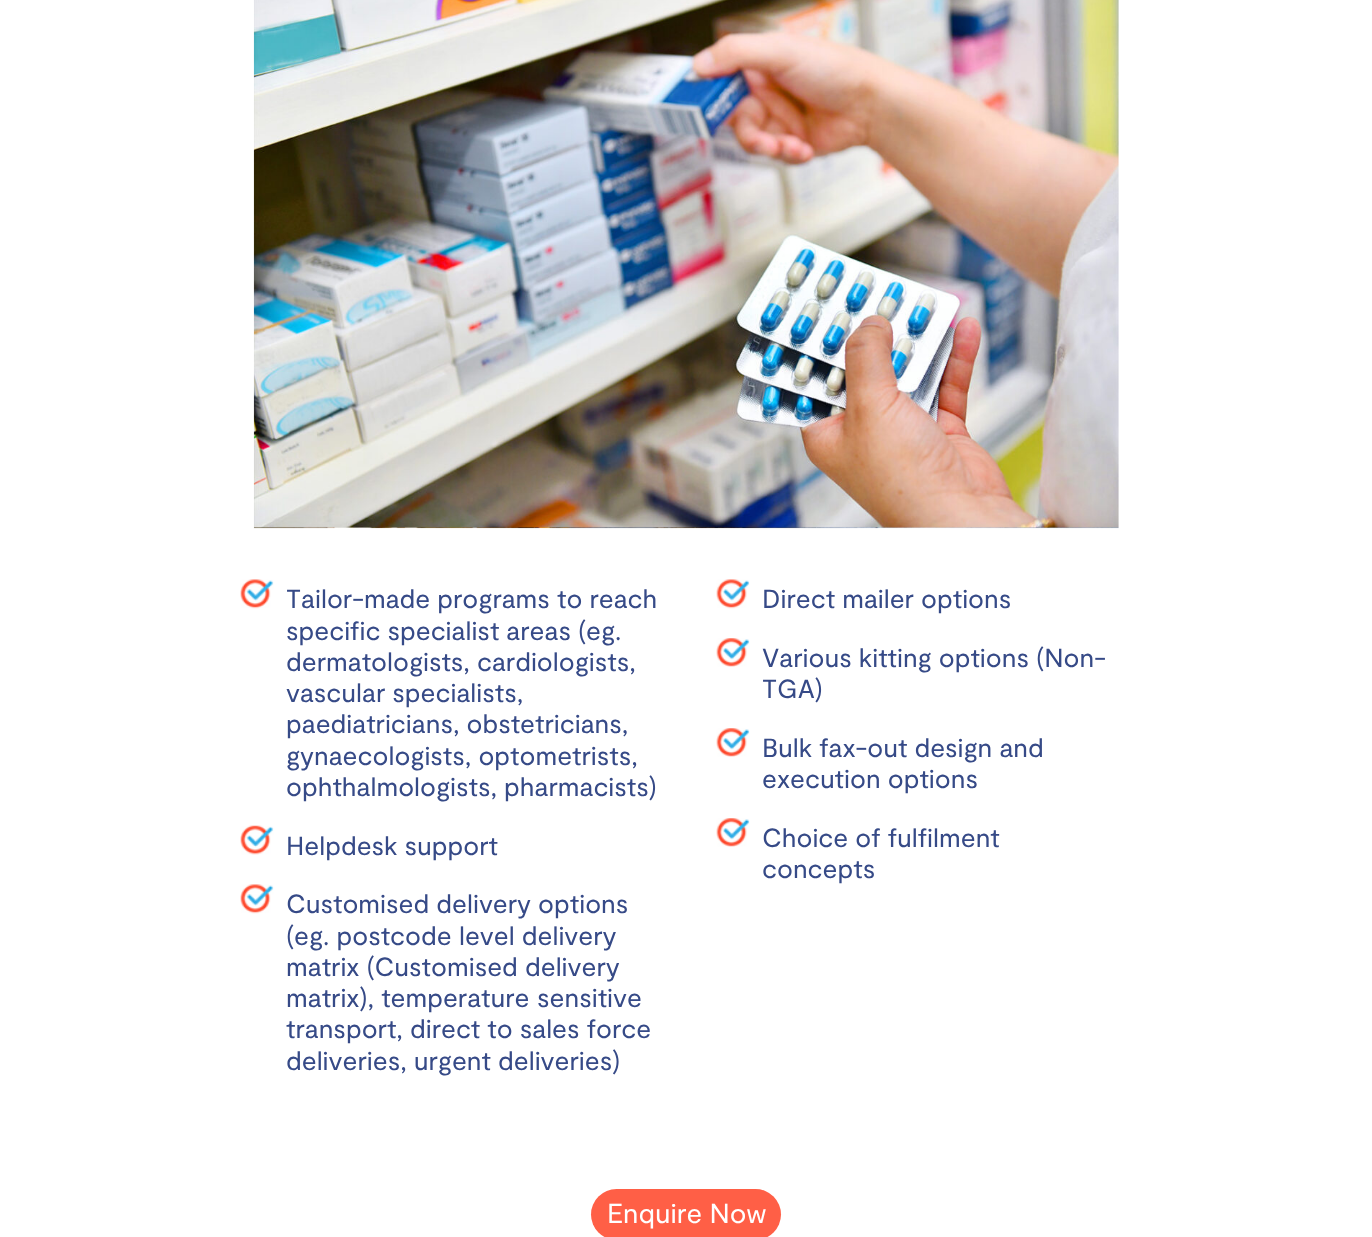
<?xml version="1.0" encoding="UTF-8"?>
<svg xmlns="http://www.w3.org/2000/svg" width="1372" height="1237">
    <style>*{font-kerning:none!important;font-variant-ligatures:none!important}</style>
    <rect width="100%" height="100%" fill="#FFFFFF"/>
    <image x="253" y="0" width="866" height="529" href="img_01.png"/>
    <image x="240" y="579" width="34" height="30" href="img_02.png"/>
    <text x="286" y="608" font-family="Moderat" font-size="26.25" fill="#364A87">Tailor-made programs</text>
    <text x="557" y="608" font-family="Moderat" font-size="26.25" fill="#364A87">to reach</text>
    <text font-family="Moderat" font-size="26.25" fill="#364A87">
        <tspan x="286" y="640">specific specialist areas (eg.</tspan>
        <tspan x="286" y="671">dermatologists, cardiologists,</tspan>
        <tspan x="286" y="702">vascular specialists,</tspan>
        <tspan x="286" y="733">paediatricians, obstetricians,</tspan>
        <tspan x="286" y="765">gynaecologists, optometrists,</tspan>
        <tspan x="286" y="796">ophthalmologists, pharmacists)</tspan>
    </text>
    <image x="240" y="825" width="34" height="30" href="img_03.png"/>
    <text x="286" y="855" font-family="Moderat" font-size="26.25" fill="#364A87">Helpdesk support</text>
    <image x="240" y="884" width="34" height="30" href="img_02.png"/>
    <text font-family="Moderat" font-size="26.25" fill="#364A87">
        <tspan x="286" y="913">Customised delivery options</tspan>
        <tspan x="286" y="945">(eg. postcode</tspan>
    </text>
    <text x="459" y="945" font-family="Moderat" font-size="26.25" fill="#364A87">level delivery</text>
    <text x="286" y="976" font-family="Moderat" font-size="26.25" fill="#364A87">matrix (Customised</text>
    <text x="525" y="976" font-family="Moderat" font-size="26.25" fill="#364A87">delivery</text>
    <text x="286" y="1007" font-family="Moderat" font-size="26.25" fill="#364A87">matrix), temperature</text>
    <text x="537" y="1007" font-family="Moderat" font-size="26.25" fill="#364A87">sensitive</text>
    <text font-family="Moderat" font-size="26.25" fill="#364A87">
        <tspan x="286" y="1038">transport, direct to sales force</tspan>
        <tspan x="286" y="1070">deliveries, urgent deliveries)</tspan>
    </text>
    <image x="716" y="579" width="34" height="30" href="img_04.png"/>
    <text x="762" y="608" font-family="Moderat" font-size="26.25" fill="#364A87">Direct mailer options</text>
    <image x="716" y="638" width="34" height="29" href="img_05.png"/>
    <text font-family="Moderat" font-size="26.25" fill="#364A87">
        <tspan x="762" y="667">Various kitting options (Non-</tspan>
        <tspan x="762" y="698">TGA)</tspan>
    </text>
    <image x="716" y="728" width="34" height="29" href="img_05.png"/>
    <text font-family="Moderat" font-size="26.25" fill="#364A87">
        <tspan x="762" y="757">Bulk fax-out design and</tspan>
        <tspan x="762" y="788">execution options</tspan>
    </text>
    <image x="716" y="818" width="34" height="29" href="img_05.png"/>
    <text font-family="Moderat" font-size="26.25" fill="#364A87">
        <tspan x="762" y="847">Choice of fulfilment</tspan>
        <tspan x="762" y="878">concepts</tspan>
    </text>
    <rect x="591" y="1189" width="190" height="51" rx="25.5" fill="#FF5F46"/>
    <text x="607" y="1223" font-family="Moderat" font-size="27.5" fill="#FFFFFF">Enquire Now</text>
</svg>
